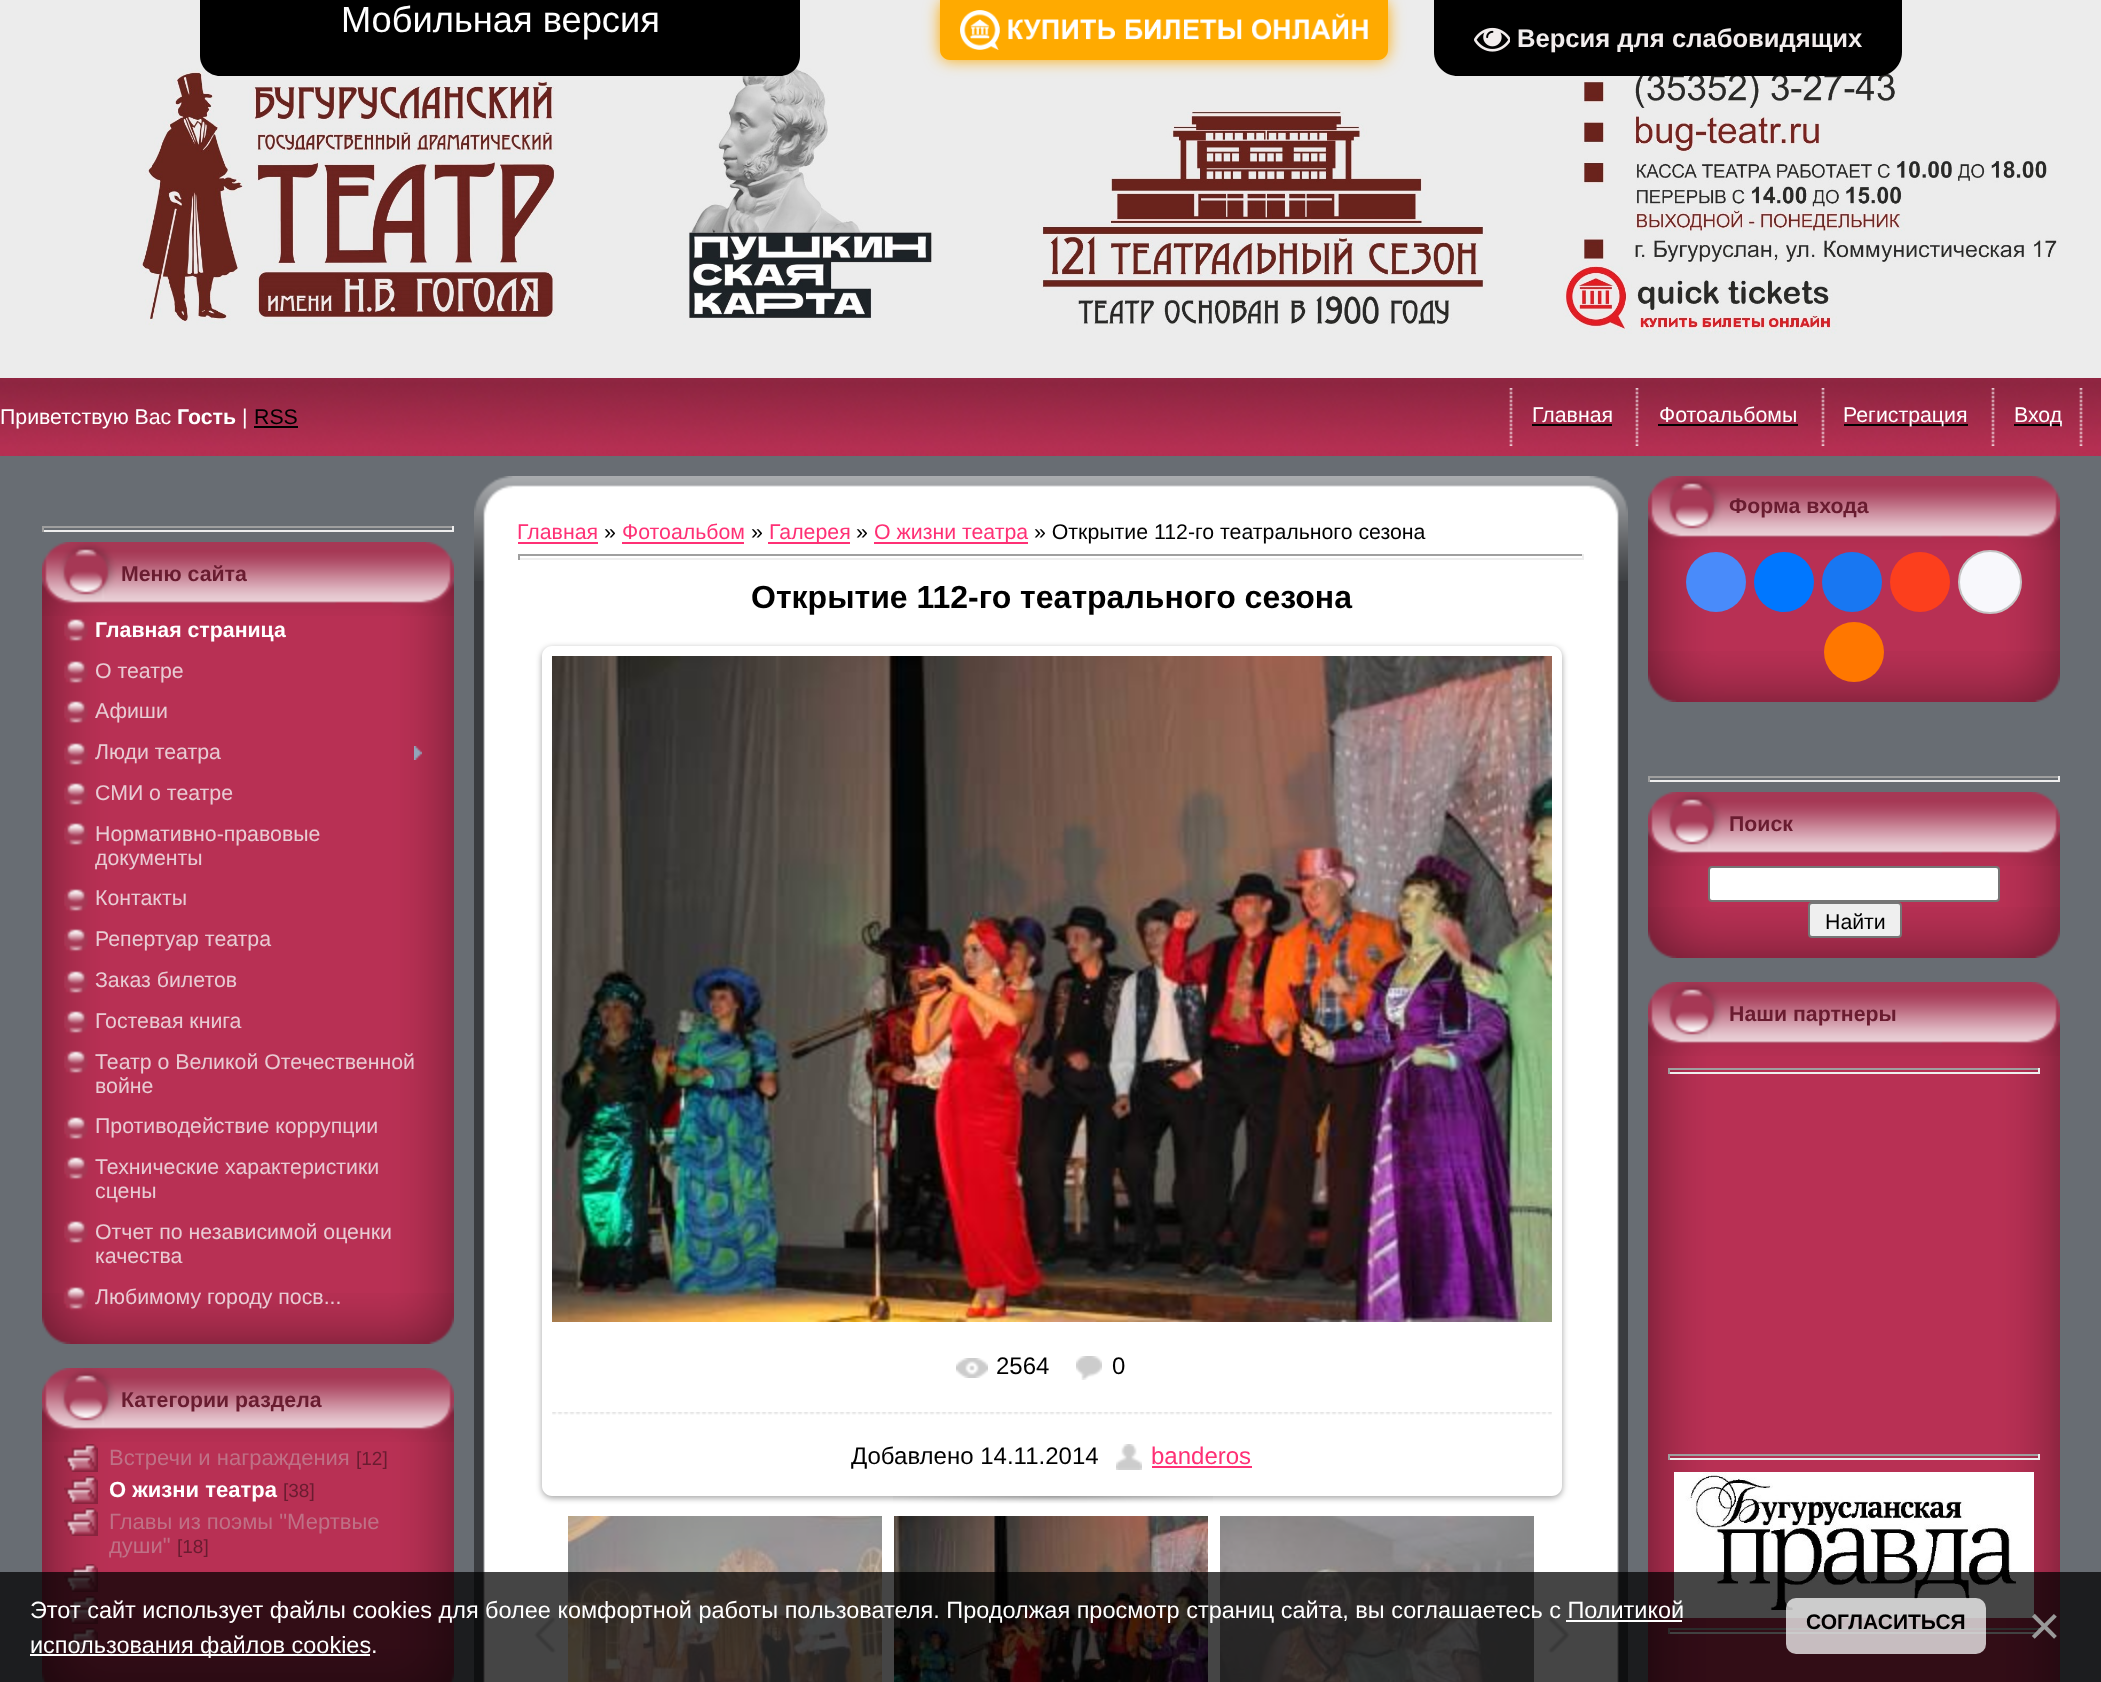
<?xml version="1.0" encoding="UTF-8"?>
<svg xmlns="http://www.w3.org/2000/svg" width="2101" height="1682">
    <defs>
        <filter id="blur1" x="-50%" y="-200%" width="200%" height="500%"><feGaussianBlur stdDeviation="8"/></filter>
        <clipPath id="clip1"><path d="M 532 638 H 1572 V 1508 H 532 Z M 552 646 H 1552 C 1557.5 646 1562 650.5 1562 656 V 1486 C 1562 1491.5 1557.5 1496 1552 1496 H 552 C 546.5 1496 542 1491.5 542 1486 V 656 C 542 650.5 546.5 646 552 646 Z" clip-rule="evenodd"/></clipPath>
        <filter id="blur2" x="-50%" y="-200%" width="200%" height="500%"><feGaussianBlur stdDeviation="3"/></filter>
    </defs>
    <rect width="100%" height="100%" fill="#686D73"/>
    <image x="0" y="0" width="2101" height="378" href="img_03.png"/>
    <path d="M 200 0 H 800 V 56 C 800 67 791 76 780 76 H 220 C 209 76 200 67 200 56 Z" fill="#000000"/>
    <text x="341" y="32" font-family="Liberation Sans" font-size="36.25" fill="#FFFFFF">Мобильная версия</text>
    <rect x="940" y="0" width="448" height="60" rx="10" fill="#FFAA00" filter="url(#blur1)"/>
    <path d="M 940 0 H 1388 V 50 C 1388 55.5 1383.5 60 1378 60 H 950 C 944.5 60 940 55.5 940 50 Z" fill="#FFAA00"/>
    <image x="960" y="10" width="408" height="40" href="img_01.png"/>
    <path d="M 1434 0 H 1902 V 52 C 1902 65.5 1891.5 76 1878 76 H 1458 C 1444.5 76 1434 65.5 1434 52 Z" fill="#000000"/>
    <image x="1474" y="27" width="36" height="25" href="img_02.png"/>
    <text x="1517" y="47" font-family="Liberation Sans" font-size="25.6" font-weight="700" fill="#F2EDED">Версия для слабовидящих</text>
    <image x="0" y="378" width="710" height="78" href="img_04.png"/>
    <text x="0" y="424" font-family="Liberation Sans" font-size="21.3" fill="#FFFFFF">Приветствую Вас</text>
    <text x="177" y="424" font-family="Liberation Sans" font-size="21.3" font-weight="700" fill="#FFFFFF">Гость</text>
    <text x="242" y="424" font-family="Liberation Sans" font-size="21.3" fill="#FFFFFF">|</text>
    <text x="254" y="424" font-family="Liberation Sans" font-size="21.3" fill="#000000">RSS</text>
    <rect x="254" y="426" width="44" height="2" fill="#000000"/>
    <image x="710" y="378" width="1391" height="78" href="img_05.png"/>
    <image x="1509" y="388" width="4" height="58" href="img_06.png"/>
    <text x="1532" y="422" font-family="Liberation Sans" font-size="21.3" fill="#FFFFFF">Главная</text>
    <rect x="1532" y="424" width="80" height="2" fill="#000000"/>
    <image x="1635" y="388" width="4" height="58" href="img_07.png"/>
    <text x="1659" y="422" font-family="Liberation Sans" font-size="21.3" fill="#FFFFFF">Фотоальбомы</text>
    <rect x="1658" y="424" width="140" height="2" fill="#000000"/>
    <image x="1821" y="388" width="4" height="58" href="img_08.png"/>
    <rect x="1844" y="424" width="124" height="2" fill="#000000"/>
    <text x="1843" y="422" font-family="Liberation Sans" font-size="21.3" fill="#FFFFFF">Регистрация</text>
    <image x="1991" y="388" width="4" height="58" href="img_09.png"/>
    <rect x="2014" y="424" width="48" height="2" fill="#000000"/>
    <text x="2014" y="422" font-family="Liberation Sans" font-size="21.3" fill="#FFFFFF">Вход</text>
    <image x="2079" y="388" width="4" height="58" href="img_10.png"/>
    <rect x="42" y="526" width="412" height="2" fill="#9F9F9F"/>
    <rect x="452" y="526" width="2" height="6" fill="#EEEEEE"/>
    <rect x="42" y="530" width="412" height="2" fill="#EEEEEE"/>
    <rect x="42" y="526" width="2" height="6" fill="#9F9F9F"/>
    <image x="42" y="616" width="412" height="677" href="img_11.png"/>
    <image x="42" y="542" width="412" height="74" href="img_12.png"/>
    <text x="121" y="581" font-family="Liberation Sans" font-size="21.3" font-weight="700" fill="#691C30">Меню сайта</text>
    <image x="42" y="1293" width="412" height="51" href="img_13.png"/>
    <image x="64" y="618" width="24" height="24" href="img_14.png"/>
    <text x="95" y="637" font-family="Liberation Sans" font-size="21.3" font-weight="700" fill="#FFFFFF">Главная страница</text>
    <image x="64" y="660" width="24" height="24" href="img_14.png"/>
    <text x="95" y="678" font-family="Liberation Sans" font-size="21.3" fill="#E8CBD3">О театре</text>
    <image x="64" y="700" width="24" height="24" href="img_14.png"/>
    <text x="95" y="718" font-family="Liberation Sans" font-size="21.3" fill="#E8CBD3">Афиши</text>
    <image x="64" y="742" width="24" height="24" href="img_14.png"/>
    <text x="95" y="759" font-family="Liberation Sans" font-size="21.3" fill="#E8CBD3">Люди театра</text>
    <image x="414" y="746" width="8" height="14" href="img_15.png"/>
    <image x="64" y="782" width="24" height="24" href="img_14.png"/>
    <text x="95" y="800" font-family="Liberation Sans" font-size="21.3" fill="#E8CBD3">СМИ о театре</text>
    <image x="64" y="822" width="24" height="24" href="img_14.png"/>
    <text font-family="Liberation Sans" font-size="21.3" fill="#E8CBD3">
        <tspan x="95" y="841">Нормативно-правовые</tspan>
        <tspan x="95" y="865">документы</tspan>
    </text>
    <image x="64" y="888" width="24" height="24" href="img_14.png"/>
    <text x="95" y="905" font-family="Liberation Sans" font-size="21.3" fill="#E8CBD3">Контакты</text>
    <image x="64" y="928" width="24" height="24" href="img_14.png"/>
    <text x="95" y="946" font-family="Liberation Sans" font-size="21.3" fill="#E8CBD3">Репертуар театра</text>
    <image x="64" y="970" width="24" height="24" href="img_14.png"/>
    <text x="95" y="987" font-family="Liberation Sans" font-size="21.3" fill="#E8CBD3">Заказ билетов</text>
    <image x="64" y="1010" width="24" height="24" href="img_14.png"/>
    <text x="95" y="1028" font-family="Liberation Sans" font-size="21.3" fill="#E8CBD3">Гостевая книга</text>
    <image x="64" y="1050" width="24" height="24" href="img_14.png"/>
    <text font-family="Liberation Sans" font-size="21.3" fill="#E8CBD3">
        <tspan x="95" y="1069">Театр о Великой Отечественной</tspan>
        <tspan x="95" y="1093">войне</tspan>
    </text>
    <image x="64" y="1116" width="24" height="24" href="img_14.png"/>
    <text x="95" y="1133" font-family="Liberation Sans" font-size="21.3" fill="#E8CBD3">Противодействие коррупции</text>
    <image x="64" y="1156" width="24" height="24" href="img_14.png"/>
    <text font-family="Liberation Sans" font-size="21.3" fill="#E8CBD3">
        <tspan x="95" y="1174">Технические характеристики</tspan>
        <tspan x="95" y="1198">сцены</tspan>
    </text>
    <image x="64" y="1220" width="24" height="24" href="img_14.png"/>
    <text font-family="Liberation Sans" font-size="21.3" fill="#E8CBD3">
        <tspan x="95" y="1239">Отчет по независимой оценки</tspan>
        <tspan x="95" y="1263">качества</tspan>
    </text>
    <image x="63" y="1286" width="25" height="25" href="img_16.png"/>
    <text x="95" y="1304" font-family="Liberation Sans" font-size="21.3" fill="#E8CBD3">Любимому городу посв...</text>
    <image x="42" y="1442" width="412" height="207" href="img_17.png"/>
    <image x="42" y="1368" width="412" height="74" href="img_12.png"/>
    <text x="121" y="1407" font-family="Liberation Sans" font-size="21.3" font-weight="700" fill="#691C30">Категории раздела</text>
    <image x="42" y="1649" width="412" height="33" href="img_18.png"/>
    <image x="64" y="1444" width="34" height="28" href="img_19.png"/>
    <text x="109" y="1465" font-family="Liberation Sans" font-size="22" fill="#BF7186">Встречи и награждения</text>
    <text x="356" y="1465" font-family="Liberation Sans" font-size="19" fill="#691C30">[12]</text>
    <image x="64" y="1476" width="34" height="28" href="img_19.png"/>
    <text x="109" y="1497" font-family="Liberation Sans" font-size="22" font-weight="700" fill="#FFFFFF">О жизни театра</text>
    <text x="283" y="1497" font-family="Liberation Sans" font-size="19" fill="#691C30">[38]</text>
    <image x="64" y="1508" width="34" height="28" href="img_19.png"/>
    <text font-family="Liberation Sans" font-size="22" fill="#BF7186">
        <tspan x="109" y="1529">Главы из поэмы "Мертвые</tspan>
        <tspan x="109" y="1553">души"</tspan>
    </text>
    <text x="177" y="1553" font-family="Liberation Sans" font-size="19" fill="#691C30">[18]</text>
    <image x="64" y="1564" width="34" height="28" href="img_19.png"/>
    <image x="64" y="1596" width="34" height="28" href="img_19.png"/>
    <image x="64" y="1628" width="34" height="26" href="img_20.png"/>
    <image x="474" y="476" width="44" height="44" href="img_21.png"/>
    <image x="518" y="476" width="1066" height="44" href="img_22.png"/>
    <image x="1584" y="476" width="44" height="44" href="img_23.png"/>
    <image x="474" y="520" width="44" height="712" href="img_24.png"/>
    <image x="474" y="520" width="11" height="61" href="img_25.png"/>
    <rect x="518" y="520" width="1066" height="1162" fill="#FFFFFF"/>
    <text x="517" y="539" font-family="Liberation Sans" font-size="21.3" fill="#FF3075">Главная</text>
    <rect x="518" y="542" width="80" height="2" fill="#FF3075"/>
    <text x="604" y="539" font-family="Liberation Sans" font-size="21.3" fill="#000000">»</text>
    <text x="622" y="539" font-family="Liberation Sans" font-size="21.3" fill="#FF3075">Фотоальбом</text>
    <rect x="622" y="542" width="122" height="2" fill="#FF3075"/>
    <text x="751" y="539" font-family="Liberation Sans" font-size="21.3" fill="#000000">»</text>
    <rect x="768" y="542" width="82" height="2" fill="#FF3075"/>
    <text x="769" y="539" font-family="Liberation Sans" font-size="21.3" fill="#FF3075">Галерея</text>
    <text x="856" y="539" font-family="Liberation Sans" font-size="21.3" fill="#000000">»</text>
    <rect x="874" y="542" width="154" height="2" fill="#FF3075"/>
    <text x="874" y="539" font-family="Liberation Sans" font-size="21.3" fill="#FF3075">О жизни театра</text>
    <text x="1034" y="539" font-family="Liberation Sans" font-size="21.3" fill="#000000">» Открытие 112-го театрального сезона</text>
    <rect x="518" y="554" width="1066" height="2" fill="#9F9F9F"/>
    <rect x="1582" y="554" width="2" height="6" fill="#EEEEEE"/>
    <rect x="518" y="558" width="1066" height="2" fill="#EEEEEE"/>
    <rect x="518" y="554" width="2" height="6" fill="#9F9F9F"/>
    <text x="751" y="608" font-family="Liberation Sans" font-size="32" font-weight="700" fill="#000000">Открытие 112-го театрального сезона</text>
    <g clip-path="url(#clip1)">
        <rect x="542" y="648" width="1020" height="850" rx="10" fill="#000000" fill-opacity="0.37" filter="url(#blur2)"/>
    </g>
    <image x="552" y="656" width="1000" height="666" href="img_26.png"/>
    <image x="956" y="1358" width="32" height="20" href="img_27.png"/>
    <text x="996" y="1374" font-family="Liberation Sans" font-size="24" fill="#000000">2564</text>
    <image x="1076" y="1356" width="26" height="24" href="img_28.png"/>
    <text x="1112" y="1374" font-family="Liberation Sans" font-size="24" fill="#000000">0</text>
    <image x="552" y="1412" width="1000" height="3" href="img_29.png"/>
    <text x="851" y="1464" font-family="Liberation Sans" font-size="24" fill="#000000">Добавлено 14.11.2014</text>
    <image x="1116" y="1444" width="26" height="26" href="img_30.png"/>
    <text x="1151" y="1464" font-family="Liberation Sans" font-size="24" fill="#FF3075">banderos</text>
    <rect x="1152" y="1466" width="100" height="2" fill="#FF3075"/>
    <image x="893" y="1496" width="320" height="7" href="img_31.png"/>
    <image x="534" y="1617" width="22" height="36" href="img_32.png"/>
    <image x="568" y="1516" width="314" height="166" href="img_33.png"/>
    <image x="894" y="1516" width="314" height="166" href="img_34.png"/>
    <image x="1220" y="1516" width="314" height="166" href="img_35.png"/>
    <image x="1548" y="1617" width="22" height="36" href="img_36.png"/>
    <image x="1584" y="520" width="44" height="712" href="img_37.png"/>
    <image x="1617" y="520" width="11" height="61" href="img_38.png"/>
    <image x="474" y="1232" width="44" height="450" href="img_39.png"/>
    <image x="1584" y="1232" width="44" height="450" href="img_40.png"/>
    <image x="1648" y="550" width="412" height="101" href="img_41.png"/>
    <image x="1648" y="476" width="412" height="74" href="img_12.png"/>
    <text x="1729" y="513" font-family="Liberation Sans" font-size="21.3" font-weight="700" fill="#691C30">Форма входа</text>
    <image x="1648" y="651" width="412" height="51" href="img_13.png"/>
    <circle cx="1716" cy="582" r="30" fill="#498BFA"/>
    <circle cx="1784" cy="582" r="30" fill="#0077FF"/>
    <circle cx="1852" cy="582" r="30" fill="#1877F2"/>
    <circle cx="1920" cy="582" r="30" fill="#FC3F1D"/>
    <circle cx="1990" cy="582" r="31" fill="#F8F8FC" stroke="#C4C4C4" stroke-width="2"/>
    <circle cx="1854" cy="652" r="30" fill="#FF7700"/>
    <rect x="1648" y="776" width="412" height="2" fill="#9F9F9F"/>
    <rect x="2058" y="776" width="2" height="6" fill="#EEEEEE"/>
    <rect x="1648" y="780" width="412" height="2" fill="#EEEEEE"/>
    <rect x="1648" y="776" width="2" height="6" fill="#9F9F9F"/>
    <image x="1648" y="866" width="412" height="41" href="img_42.png"/>
    <image x="1648" y="792" width="412" height="74" href="img_12.png"/>
    <text x="1729" y="831" font-family="Liberation Sans" font-size="21.3" font-weight="700" fill="#691C30">Поиск</text>
    <image x="1648" y="907" width="412" height="51" href="img_13.png"/>
    <rect x="1709" y="867" width="290" height="34" rx="3" fill="#FFFFFF" stroke="#767676" stroke-width="2"/>
    <rect x="1809" y="903" width="92" height="34" rx="3" fill="#EFEFEF" stroke="#767676" stroke-width="2"/>
    <text x="1825" y="929" font-family="Liberation Sans" font-size="21.3" fill="#000000">Найти</text>
    <image x="1648" y="1056" width="412" height="626" href="img_43.png"/>
    <image x="1648" y="982" width="412" height="74" href="img_12.png"/>
    <text x="1729" y="1021" font-family="Liberation Sans" font-size="21.3" font-weight="700" fill="#691C30">Наши партнеры</text>
    <rect x="1668" y="1068" width="372" height="2" fill="#9F9F9F"/>
    <rect x="2038" y="1068" width="2" height="6" fill="#EEEEEE"/>
    <rect x="1668" y="1072" width="372" height="2" fill="#EEEEEE"/>
    <rect x="1668" y="1068" width="2" height="6" fill="#9F9F9F"/>
    <rect x="1668" y="1454" width="372" height="2" fill="#9F9F9F"/>
    <rect x="2038" y="1454" width="2" height="6" fill="#EEEEEE"/>
    <rect x="1668" y="1458" width="372" height="2" fill="#EEEEEE"/>
    <rect x="1668" y="1454" width="2" height="6" fill="#9F9F9F"/>
    <image x="1674" y="1472" width="360" height="146" href="img_44.png"/>
    <rect x="1668" y="1628" width="372" height="2" fill="#9F9F9F"/>
    <rect x="2038" y="1628" width="2" height="6" fill="#EEEEEE"/>
    <rect x="1668" y="1632" width="372" height="2" fill="#EEEEEE"/>
    <rect x="1668" y="1628" width="2" height="6" fill="#9F9F9F"/>
    <rect x="0" y="1572" width="2101" height="110" fill="#000000" fill-opacity="0.73"/>
    <text x="30" y="1618" font-family="Liberation Sans" font-size="23.47" fill="#FFFFFF">Этот сайт использует файлы cookies для более комфортной работы пользователя. Продолжая просмотр страниц сайта, вы соглашаетесь с Политикой</text>
    <rect x="30" y="1654" width="340" height="2" fill="#FFFFFF"/>
    <text x="30" y="1653" font-family="Liberation Sans" font-size="23.47" fill="#FFFFFF">использования файлов cookies</text>
    <rect x="1566" y="1620" width="116" height="2" fill="#FFFFFF"/>
    <text x="371" y="1653" font-family="Liberation Sans" font-size="23.47" fill="#FFFFFF">.</text>
    <rect x="1786" y="1598" width="200" height="56" rx="10" fill="#FFFFFF" fill-opacity="0.73"/>
    <text x="1806" y="1629" font-family="Liberation Sans" font-size="21" font-weight="700" fill="#000000">СОГЛАСИТЬСЯ</text>
    <text x="2028" y="1645" font-family="Liberation Sans" font-size="56" fill="#999999">×</text>
</svg>
